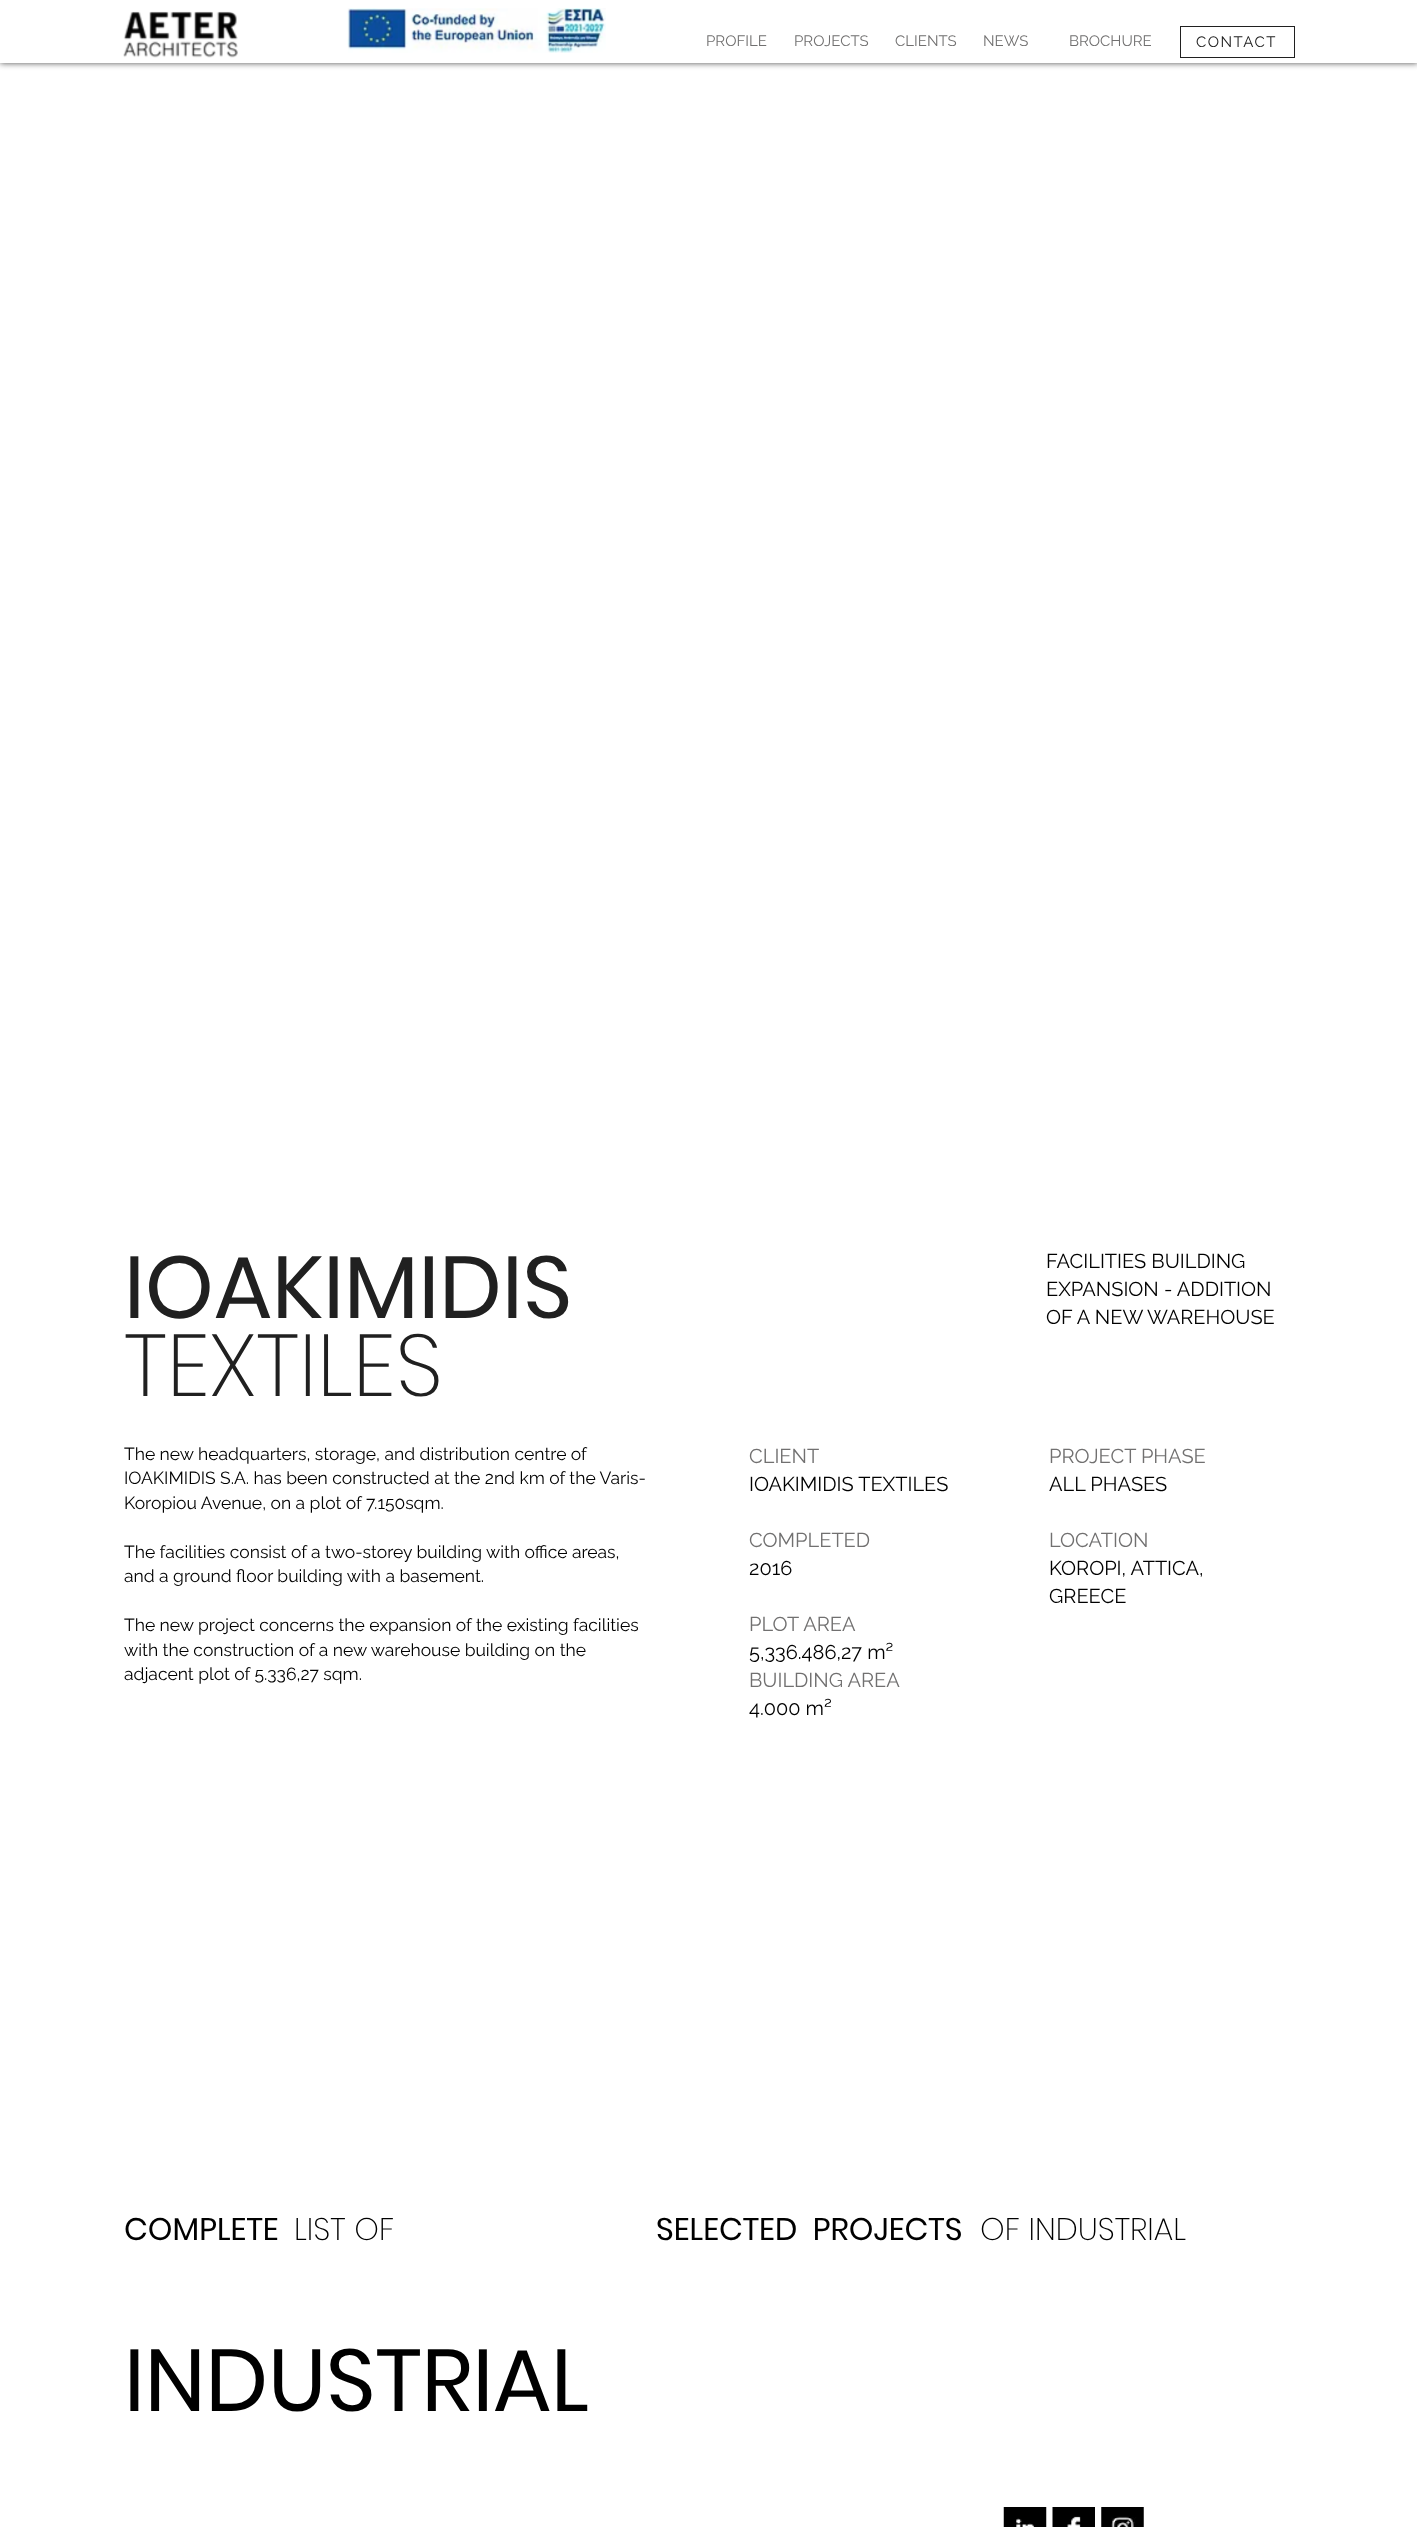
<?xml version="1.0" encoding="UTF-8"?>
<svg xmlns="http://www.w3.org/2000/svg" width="1417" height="2527">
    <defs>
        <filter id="blur1" x="-50%" y="-200%" width="200%" height="500%"><feGaussianBlur stdDeviation="3"/></filter>
    </defs>
    <rect width="100%" height="100%" fill="#FFFFFF"/>
    <rect x="0" y="0" width="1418" height="63" fill="#000000" fill-opacity="0.7" filter="url(#blur1)"/>
    <rect x="0" y="0" width="1417" height="63" fill="#FFFFFF"/>
    <image x="123" y="11" width="115" height="47" href="img_01.png"/>
    <image x="347" y="8" width="259" height="45" href="img_02.png"/>
    <text x="706" y="46" font-family="Raleway" font-size="15" fill="#717070">PROFILE</text>
    <text x="794" y="46" font-family="Raleway" font-size="15" fill="#717070">PROJECTS</text>
    <text x="895" y="46" font-family="Raleway" font-size="15" fill="#717070">CLIENTS</text>
    <text x="983" y="46" font-family="Raleway" font-size="15" fill="#717070">NEWS</text>
    <text x="1069" y="46" font-family="Raleway" font-size="15" fill="#717070">BROCHURE</text>
    <rect x="1180.5" y="26.5" width="114" height="31" fill="none" stroke="#202020"/>
    <text x="1196" y="47" font-family="Raleway" font-size="15" letter-spacing="1.5" fill="#202020">CONTACT</text>
    <text x="124" y="1318" font-family="Poppins" font-size="87.5" fill="#202020">IOAKIMIDIS</text>
    <text x="124" y="1396" font-family="Poppins" font-size="87.5" font-weight="200" fill="#202020">TEXTILES</text>
    <text font-family="Raleway" font-size="20" fill="#000000">
        <tspan x="1046" y="1268">FACILITIES BUILDING</tspan>
        <tspan x="1046" y="1296">EXPANSION - ADDITION</tspan>
        <tspan x="1046" y="1324">OF A NEW WAREHOUSE</tspan>
    </text>
    <text font-family="Raleway" font-size="17.5" fill="#000000">
        <tspan x="124" y="1460">The new headquarters, storage, and distribution centre of</tspan>
        <tspan x="124" y="1484">IOAKIMIDIS S.A. has been constructed at the 2nd km of the Varis-</tspan>
        <tspan x="124" y="1509">Koropiou Avenue, on a plot of 7.150sqm.</tspan>
    </text>
    <text font-family="Raleway" font-size="17.5" fill="#000000">
        <tspan x="124" y="1558">The facilities consist of a two-storey building with office areas,</tspan>
        <tspan x="124" y="1582">and a ground floor building with a basement.</tspan>
    </text>
    <text font-family="Raleway" font-size="17.5" fill="#000000">
        <tspan x="124" y="1631">The new project concerns the expansion of the existing facilities</tspan>
        <tspan x="124" y="1656">with the construction of a new warehouse building on the</tspan>
        <tspan x="124" y="1680">adjacent plot of 5.336,27 sqm.</tspan>
    </text>
    <text x="749" y="1463" font-family="Raleway" font-size="20" fill="#717070">CLIENT</text>
    <text x="749" y="1491" font-family="Raleway" font-size="20" fill="#000000">IOAKIMIDIS TEXTILES</text>
    <text x="749" y="1547" font-family="Raleway" font-size="20" fill="#717070">COMPLETED</text>
    <text x="749" y="1575" font-family="Raleway" font-size="20" fill="#000000">2016</text>
    <text x="749" y="1631" font-family="Raleway" font-size="20" fill="#717070">PLOT AREA</text>
    <text x="749" y="1659" font-family="Raleway" font-size="20" fill="#000000">5,336.486,27 m²</text>
    <text x="749" y="1687" font-family="Raleway" font-size="20" fill="#717070">BUILDING AREA</text>
    <text x="749" y="1715" font-family="Raleway" font-size="20" fill="#000000">4.000 m²</text>
    <text x="1049" y="1463" font-family="Raleway" font-size="20" fill="#717070">PROJECT PHASE</text>
    <text x="1049" y="1491" font-family="Raleway" font-size="20" fill="#000000">ALL PHASES</text>
    <text x="1049" y="1547" font-family="Raleway" font-size="20" fill="#717070">LOCATION</text>
    <text font-family="Raleway" font-size="20" fill="#000000">
        <tspan x="1049" y="1575">KOROPI, ATTICA,</tspan>
        <tspan x="1049" y="1603">GREECE</tspan>
    </text>
    <text x="124" y="2240" font-family="Poppins" font-size="31.25" fill="#000000">COMPLETE</text>
    <text x="294" y="2240" font-family="Poppins" font-size="31.25" font-weight="200" fill="#000000">LIST OF</text>
    <text x="656" y="2240" font-family="Poppins" font-size="31.25" fill="#000000" xml:space="preserve">SELECTED  PROJECTS</text>
    <text x="980" y="2240" font-family="Poppins" font-size="31.25" font-weight="200" fill="#000000">OF INDUSTRIAL</text>
    <text x="124" y="2411" font-family="Poppins" font-size="87.5" fill="#000000">INDUSTRIAL</text>
    <image x="1003" y="2507" width="44" height="20" href="img_03.png"/>
    <image x="1052" y="2507" width="43" height="20" href="img_04.png"/>
    <image x="1101" y="2507" width="43" height="20" href="img_05.png"/>
</svg>
